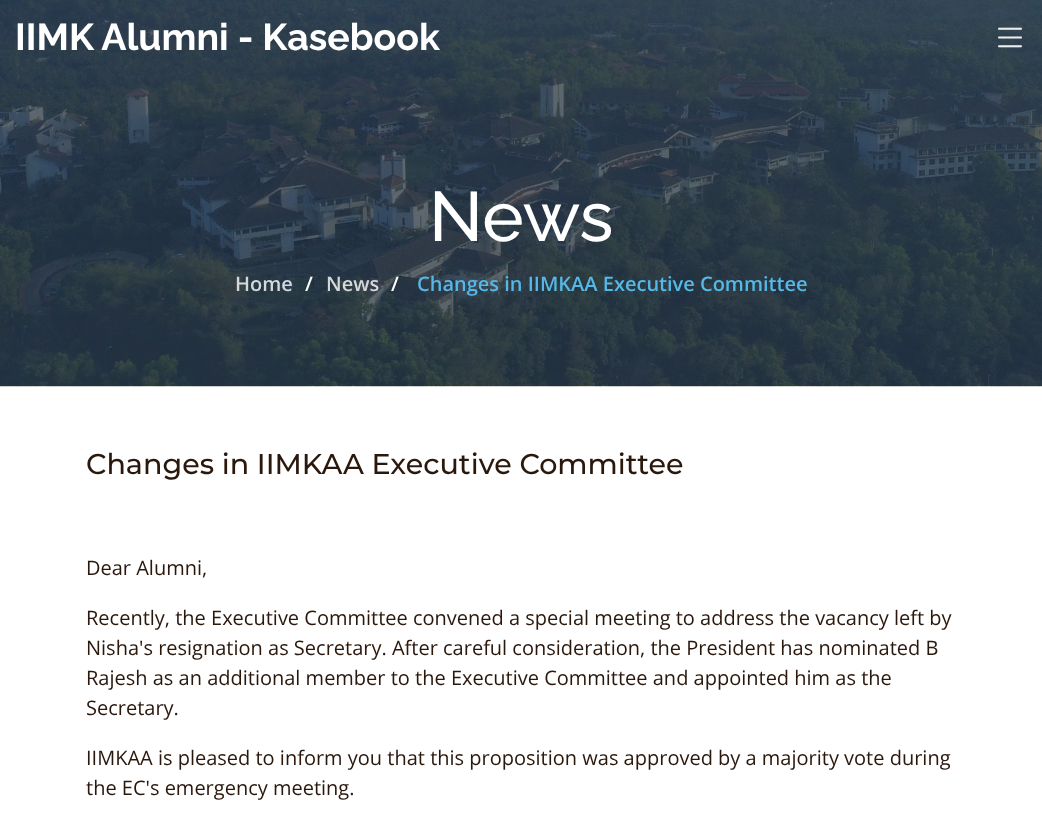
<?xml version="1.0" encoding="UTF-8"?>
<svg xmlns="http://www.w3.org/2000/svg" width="1042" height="828">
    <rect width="100%" height="100%" fill="#FFFFFF"/>
    <image x="0" y="0" width="1042" height="387" href="img_02.png"/>
    <text x="15" y="50" font-family="Raleway" font-size="37.5" font-weight="700" fill="#FFFFFF">IIMK Alumni - Kasebook</text>
    <image x="998" y="27" width="24" height="21" href="img_01.png"/>
    <text x="429" y="241" font-family="Raleway" font-size="70" font-weight="500" fill="#FFFFFF">News</text>
    <text x="235" y="291" font-family="Open Sans" font-size="20" font-weight="600" fill="#D4D8DA">Home</text>
    <text x="305" y="291" font-family="Open Sans" font-size="20" font-weight="600" fill="#FFFFFF">/</text>
    <text x="326" y="291" font-family="Open Sans" font-size="20" font-weight="600" fill="#D4D8DA">News</text>
    <text x="391" y="291" font-family="Open Sans" font-size="20" font-weight="600" fill="#FFFFFF">/</text>
    <text x="417" y="291" font-family="Open Sans" font-size="20" font-weight="600" fill="#56B8E6">Changes in IIMKAA Executive Committee</text>
    <text x="86" y="474" font-family="Montserrat" font-size="28.6" font-weight="500" fill="#2B180D">Changes in IIMKAA Executive Committee</text>
    <text x="86" y="575" font-family="Open Sans" font-size="20" fill="#2B180D">Dear Alumni,</text>
    <text font-family="Open Sans" font-size="20" fill="#2B180D">
        <tspan x="86" y="625">Recently, the Executive Committee convened a special meeting to address the vacancy left by</tspan>
        <tspan x="86" y="655">Nisha's resignation as Secretary. After careful consideration, the President has nominated B</tspan>
        <tspan x="86" y="685">Rajesh as an additional member to the Executive Committee and appointed him as the</tspan>
        <tspan x="86" y="715">Secretary.</tspan>
    </text>
    <text font-family="Open Sans" font-size="20" fill="#2B180D">
        <tspan x="86" y="765">IIMKAA is pleased to inform you that this proposition was approved by a majority vote during</tspan>
        <tspan x="86" y="795">the EC's emergency meeting.</tspan>
    </text>
</svg>
